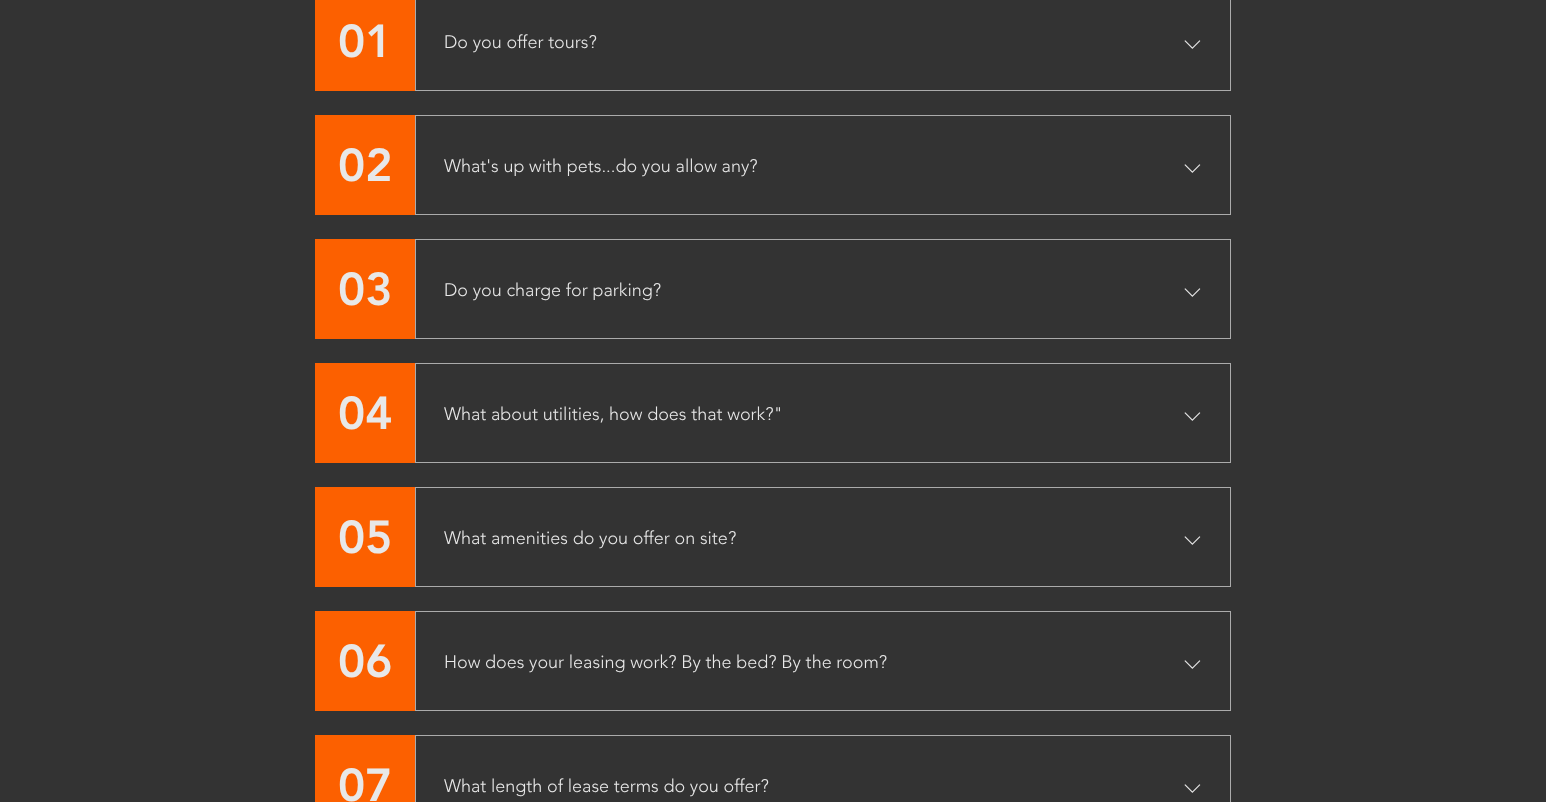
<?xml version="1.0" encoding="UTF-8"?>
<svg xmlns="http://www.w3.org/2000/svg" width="1546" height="802">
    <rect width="100%" height="100%" fill="#333333"/>
    <rect x="315" y="0" width="100" height="91" fill="#FC6000"/>
    <text x="338" y="57" font-family="'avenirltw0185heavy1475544'" font-size="46" font-weight="900" fill="#E8E8E8">01</text>
    <rect x="415.5" y="-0.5" width="815" height="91" fill="none" stroke="#ABABAB"/>
    <text x="444" y="48" font-family="'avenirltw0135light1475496'" font-size="18" font-weight="300" fill="#E8E8E8">Do you offer tours?</text>
    <image x="1184" y="40" width="17" height="9" href="img_01.png"/>
    <rect x="315" y="115" width="100" height="100" fill="#FC6000"/>
    <text x="338" y="181" font-family="'avenirltw0185heavy1475544'" font-size="46" font-weight="900" fill="#E8E8E8">02</text>
    <rect x="415.5" y="115.5" width="815" height="99" fill="none" stroke="#ABABAB"/>
    <text x="444" y="172" font-family="'avenirltw0135light1475496'" font-size="18" font-weight="300" fill="#E8E8E8">What's up with pets...do you allow any?</text>
    <image x="1184" y="164" width="17" height="9" href="img_01.png"/>
    <rect x="315" y="239" width="100" height="100" fill="#FC6000"/>
    <text x="338" y="305" font-family="'avenirltw0185heavy1475544'" font-size="46" font-weight="900" fill="#E8E8E8">03</text>
    <rect x="415.5" y="239.5" width="815" height="99" fill="none" stroke="#ABABAB"/>
    <text x="444" y="296" font-family="'avenirltw0135light1475496'" font-size="18" font-weight="300" fill="#E8E8E8">Do you charge for parking?</text>
    <image x="1184" y="288" width="17" height="9" href="img_01.png"/>
    <rect x="315" y="363" width="100" height="100" fill="#FC6000"/>
    <text x="338" y="429" font-family="'avenirltw0185heavy1475544'" font-size="46" font-weight="900" fill="#E8E8E8">04</text>
    <rect x="415.5" y="363.5" width="815" height="99" fill="none" stroke="#ABABAB"/>
    <text x="444" y="420" font-family="'avenirltw0135light1475496'" font-size="18" font-weight="300" fill="#E8E8E8">What about utilities, how does that work?"</text>
    <image x="1184" y="412" width="17" height="9" href="img_01.png"/>
    <rect x="315" y="487" width="100" height="100" fill="#FC6000"/>
    <text x="338" y="553" font-family="'avenirltw0185heavy1475544'" font-size="46" font-weight="900" fill="#E8E8E8">05</text>
    <rect x="415.5" y="487.5" width="815" height="99" fill="none" stroke="#ABABAB"/>
    <text x="444" y="544" font-family="'avenirltw0135light1475496'" font-size="18" font-weight="300" fill="#E8E8E8">What amenities do you offer on site?</text>
    <image x="1184" y="536" width="17" height="9" href="img_01.png"/>
    <rect x="315" y="611" width="100" height="100" fill="#FC6000"/>
    <text x="338" y="677" font-family="'avenirltw0185heavy1475544'" font-size="46" font-weight="900" fill="#E8E8E8">06</text>
    <rect x="415.5" y="611.5" width="815" height="99" fill="none" stroke="#ABABAB"/>
    <text x="444" y="668" font-family="'avenirltw0135light1475496'" font-size="18" font-weight="300" fill="#E8E8E8">How does your leasing work? By the bed? By the room?</text>
    <image x="1184" y="660" width="17" height="9" href="img_01.png"/>
    <rect x="315" y="735" width="100" height="67" fill="#FC6000"/>
    <text x="338" y="801" font-family="'avenirltw0185heavy1475544'" font-size="46" font-weight="900" fill="#E8E8E8">07</text>
    <rect x="415.5" y="735.5" width="815" height="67" fill="none" stroke="#ABABAB"/>
    <text x="444" y="792" font-family="'avenirltw0135light1475496'" font-size="18" font-weight="300" fill="#E8E8E8">What length of lease terms do you offer?</text>
    <image x="1184" y="784" width="17" height="9" href="img_01.png"/>
</svg>
